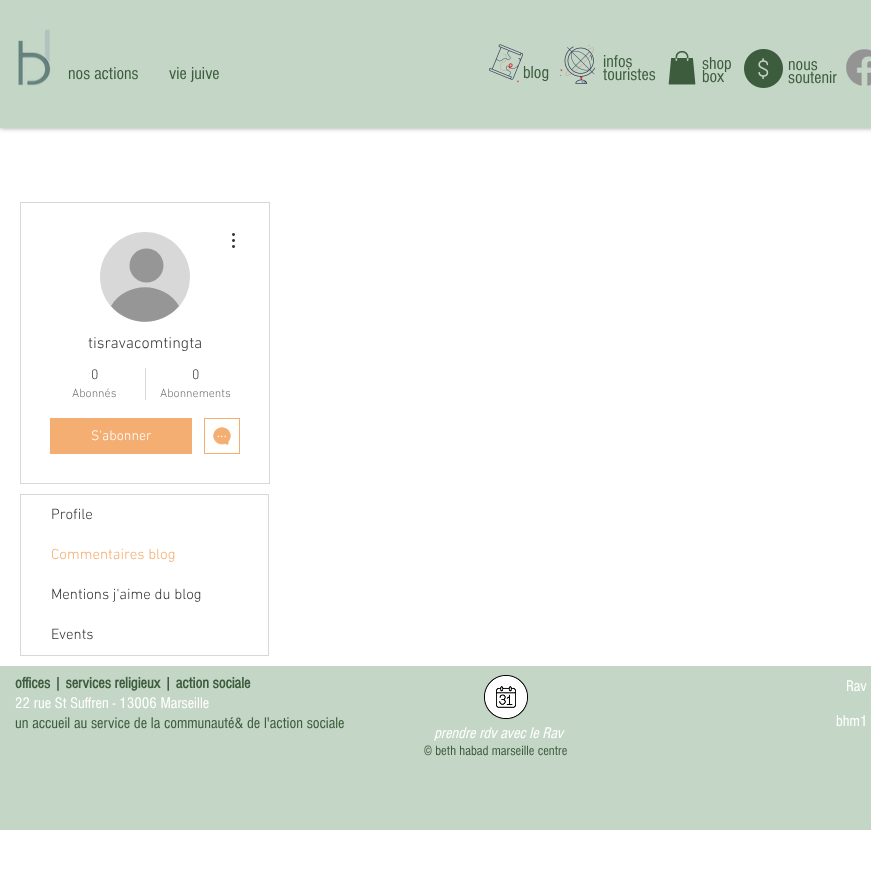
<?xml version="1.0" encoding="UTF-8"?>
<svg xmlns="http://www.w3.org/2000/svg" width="871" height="891">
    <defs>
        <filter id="blur1" x="-50%" y="-200%" width="200%" height="500%"><feGaussianBlur stdDeviation="2.5"/></filter>
    </defs>
    <rect width="100%" height="100%" fill="#FFFFFF"/>
    <rect x="0" y="0" width="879" height="128" fill="#000000" fill-opacity="0.39" filter="url(#blur1)"/>
    <rect x="0" y="0" width="871" height="128" fill="#C4D6C5"/>
    <image x="18" y="29" width="33" height="57" href="img_01.png"/>
    <text x="68" y="79" font-family="'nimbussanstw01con'" font-size="18" fill="#3D5C3E">nos actions</text>
    <text x="169" y="79" font-family="'nimbussanstw01con'" font-size="18" fill="#3D5C3E">vie juive</text>
    <image x="489" y="44" width="34" height="39" href="img_02.png"/>
    <text x="523" y="78" font-family="'nimbussanstw01con'" font-size="18" fill="#3D5C3E">blog</text>
    <image x="560" y="45" width="35" height="39" href="img_03.png"/>
    <text font-family="'nimbussanstw01con'" font-size="18" fill="#3D5C3E">
        <tspan x="603" y="67">infos</tspan>
        <tspan x="603" y="80">touristes</tspan>
    </text>
    <image x="668" y="51" width="28" height="34" href="img_04.png"/>
    <text font-family="'nimbussanstw01con'" font-size="18" fill="#3D5C3E">
        <tspan x="702" y="69">shop</tspan>
        <tspan x="702" y="82">box</tspan>
    </text>
    <image x="744" y="49" width="39" height="39" href="img_05.png"/>
    <text font-family="'nimbussanstw01con'" font-size="18" fill="#3D5C3E">
        <tspan x="788" y="70">nous</tspan>
        <tspan x="788" y="83">soutenir</tspan>
    </text>
    <image x="846" y="49" width="25" height="37" href="img_06.png"/>
    <rect x="20.5" y="202.5" width="249" height="281" fill="none" stroke="#D7D7D7"/>
    <circle cx="145" cy="277" r="45" fill="#D8D8D8"/>
    <circle cx="146.5" cy="265.5" r="17" fill="#969696"/>
    <path d="M 179 306 C 161 327 129 327 111 306 C 126 281 164 281 179 306 Z" fill="#969696"/>
    <image x="232" y="233" width="3" height="15" href="img_07.png"/>
    <text x="88" y="348" font-family="'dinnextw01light'" font-size="16" font-weight="300" fill="#363636">tisravacomtingta</text>
    <text x="91" y="379" font-family="'dinnextw01light'" font-size="14" font-weight="300" fill="#363636">0</text>
    <text x="72" y="397" font-family="'dinnextw01light'" font-size="12" font-weight="300" fill="#727272">Abonnés</text>
    <rect x="145" y="368" width="1" height="32" fill="#D7D7D7"/>
    <text x="192" y="379" font-family="'dinnextw01light'" font-size="14" font-weight="300" fill="#363636">0</text>
    <text x="160" y="397" font-family="'dinnextw01light'" font-size="12" font-weight="300" fill="#727272">Abonnements</text>
    <rect x="50" y="418" width="142" height="36" fill="#F5AE71"/>
    <text x="91" y="440" font-family="'dinnextw01light'" font-size="14" font-weight="300" fill="#FFFFFF">S'abonner</text>
    <rect x="204.5" y="418.5" width="35" height="35" fill="none" stroke="#F5AE71"/>
    <image x="213" y="427" width="18" height="18" href="img_08.png"/>
    <rect x="20.5" y="494.5" width="248" height="161" fill="none" stroke="#D7D7D7"/>
    <text x="51" y="519" font-family="'dinnextw01light'" font-size="15" font-weight="300" fill="#363636">Profile</text>
    <text x="51" y="559" font-family="'dinnextw01light'" font-size="15" font-weight="300" fill="#F5AE71">Commentaires blog</text>
    <text x="51" y="599" font-family="'dinnextw01light'" font-size="15" font-weight="300" fill="#363636">Mentions j'aime du blog</text>
    <text x="51" y="639" font-family="'dinnextw01light'" font-size="15" font-weight="300" fill="#363636">Events</text>
    <rect x="0" y="666" width="871" height="164" fill="#C4D6C5"/>
    <text x="15" y="688" font-family="'nimbussanstw01con'" font-size="16" font-weight="700" fill="#3D5C3E">offices | services religieux | action sociale</text>
    <text x="15" y="708" font-family="'nimbussanstw01con'" font-size="16" fill="#FFFFFF">22 rue St Suffren - 13006 Marseille</text>
    <text x="15" y="728" font-family="'nimbussanstw01con'" font-size="16" fill="#3D5C3E">un accueil au service de la communauté&amp; de l'action sociale</text>
    <text x="846" y="691" font-family="'nimbussanstw01con'" font-size="16" fill="#FFFFFF">Rav</text>
    <text x="836" y="726" font-family="'nimbussanstw01con'" font-size="16" fill="#FFFFFF">bhm1</text>
    <image x="484" y="675" width="44" height="44" href="img_09.png"/>
    <text x="434" y="738" font-family="'nimbussanstw01con'" font-size="16" font-style="italic" fill="#FFFFFF">prendre rdv avec le Rav</text>
    <text x="424" y="755" font-family="'nimbussanstw01con'" font-size="14" fill="#3D5C3E">© beth habad marseille centre</text>
</svg>
